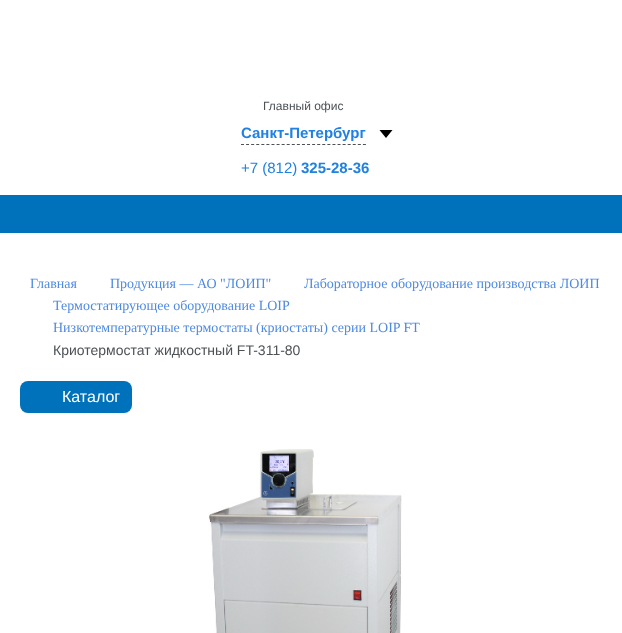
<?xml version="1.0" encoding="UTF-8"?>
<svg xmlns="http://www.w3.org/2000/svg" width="622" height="633">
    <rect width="100%" height="100%" fill="#FFFFFF"/>
    <text x="263" y="110" font-family="Liberation Sans" font-size="12" fill="#4D5257">Главный офис</text>
    <path d="M 241 144.5 H 366" fill="none" stroke="#4D5157" stroke-dasharray="3 2.08"/>
    <text x="241" y="138" font-family="Liberation Sans" font-size="15" font-weight="700" fill="#2081E2">Санкт-Петербург</text>
    <path d="M 386 138 L 379.5 130 H 392.5 Z" fill="#000000"/>
    <text x="241" y="173" font-family="Liberation Sans" font-size="15" fill="#2081E2">+7 (812)</text>
    <text x="301" y="173" font-family="Liberation Sans" font-size="15" font-weight="700" fill="#2081E2">325-28-36</text>
    <rect x="0" y="195" width="622" height="38" fill="#0072BC"/>
    <text x="30" y="288" font-family="Liberation Serif" font-size="14" fill="#4F8AE1">Главная</text>
    <text x="110" y="288" font-family="Liberation Serif" font-size="14" fill="#4F8AE1">Продукция — АО "ЛОИП"</text>
    <text x="304" y="288" font-family="Liberation Serif" font-size="14" fill="#4F8AE1">Лабораторное оборудование производства ЛОИП</text>
    <text font-family="Liberation Serif" font-size="14" fill="#4F8AE1">
        <tspan x="53" y="310">Термостатирующее оборудование LOIP</tspan>
        <tspan x="53" y="332">Низкотемпературные термостаты (криостаты) серии LOIP FT</tspan>
    </text>
    <text x="53" y="355" font-family="Liberation Sans" font-size="14" fill="#4D5257">Криотермостат жидкостный FT-311-80</text>
    <rect x="20" y="381" width="112" height="32" rx="8" fill="#0072BC"/>
    <text x="62" y="402" font-family="Liberation Sans" font-size="16" fill="#FFFFFF">Каталог</text>
    <image x="209" y="449" width="193" height="184" href="img_01.png"/>
</svg>
